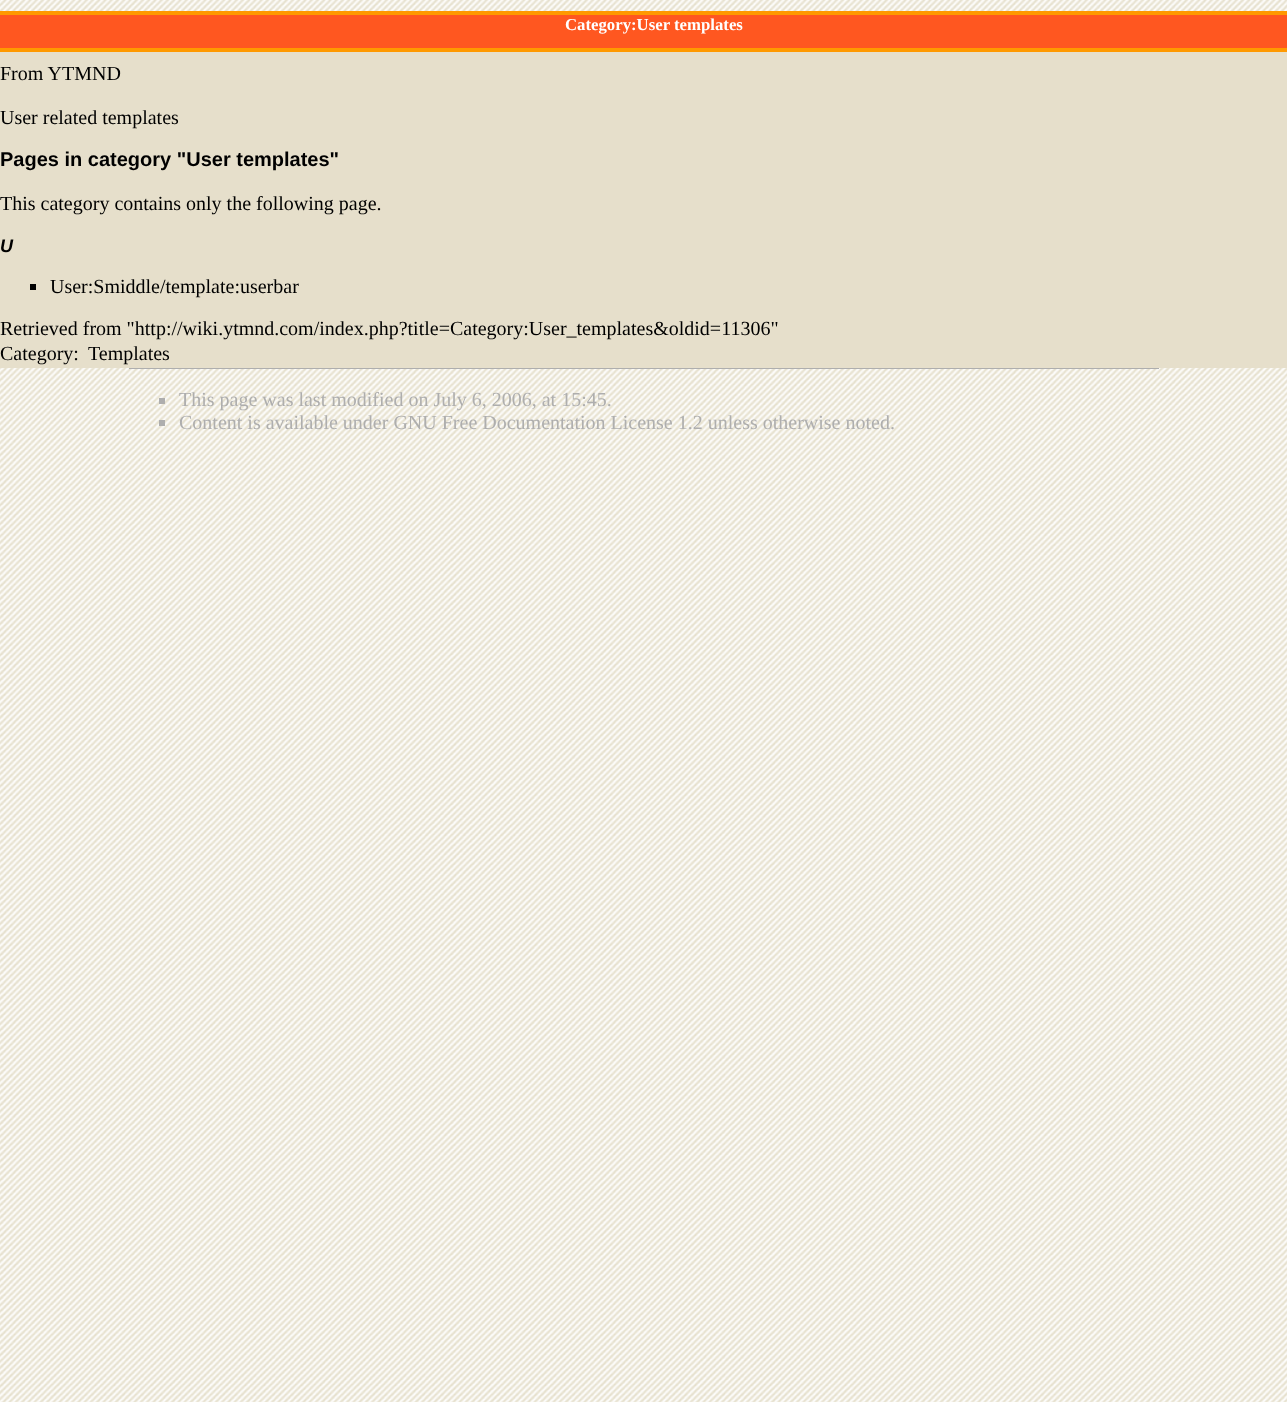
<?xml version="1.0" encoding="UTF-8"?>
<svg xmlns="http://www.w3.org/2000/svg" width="1287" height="1402">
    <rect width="100%" height="100%" fill="#FFFFFF"/>
    <image x="0" y="0" width="1287" height="1402" href="img_01.png"/>
    <rect x="0" y="52" width="1287" height="316" fill="#E6DFCB"/>
    <rect x="0" y="15" width="1287" height="33" fill="#FF5720"/>
    <rect x="0" y="11" width="1287" height="4" fill="#FF9900"/>
    <rect x="0" y="48" width="1287" height="4" fill="#FF9900"/>
    <text x="565" y="30" font-family="Liberation Serif" font-size="16.75" font-weight="700" fill="#FFFFFF">Category:User templates</text>
    <text x="0" y="80" font-family="Liberation Serif" font-size="20" fill="#000000">From YTMND</text>
    <text x="0" y="124" font-family="Liberation Serif" font-size="20" fill="#000000">User related templates</text>
    <text x="0" y="166" font-family="Liberation Sans" font-size="20" font-weight="700" fill="#000000">Pages in category "User templates"</text>
    <text x="0" y="210" font-family="Liberation Serif" font-size="20" fill="#000000">This category contains only the following page.</text>
    <text x="0" y="252" font-family="Liberation Sans" font-size="18" font-weight="700" font-style="italic" fill="#000000">U</text>
    <rect x="30" y="284" width="6" height="6" fill="#000000"/>
    <text x="50" y="293" font-family="Liberation Serif" font-size="20" fill="#000000">User:Smiddle/template:userbar</text>
    <text font-family="Liberation Serif" font-size="20" fill="#000000">
        <tspan x="0" y="335">Retrieved from "http://wiki.ytmnd.com/index.php?title=Category:User_templates&amp;oldid=11306"</tspan>
        <tspan x="0" y="360">Category:</tspan>
    </text>
    <text x="88" y="360" font-family="Liberation Serif" font-size="20" fill="#000000">Templates</text>
    <rect x="129" y="368" width="1030" height="1" fill="#AEAEAE"/>
    <rect x="159" y="398" width="6" height="6" fill="#AEAEAE"/>
    <text x="179" y="406" font-family="Liberation Serif" font-size="20" fill="#AEAEAE">This page was last modified on July 6, 2006, at 15:45.</text>
    <rect x="159" y="420" width="6" height="6" fill="#AEAEAE"/>
    <text x="179" y="429" font-family="Liberation Serif" font-size="20" fill="#AEAEAE">Content is available under GNU Free Documentation License 1.2 unless otherwise noted.</text>
</svg>
